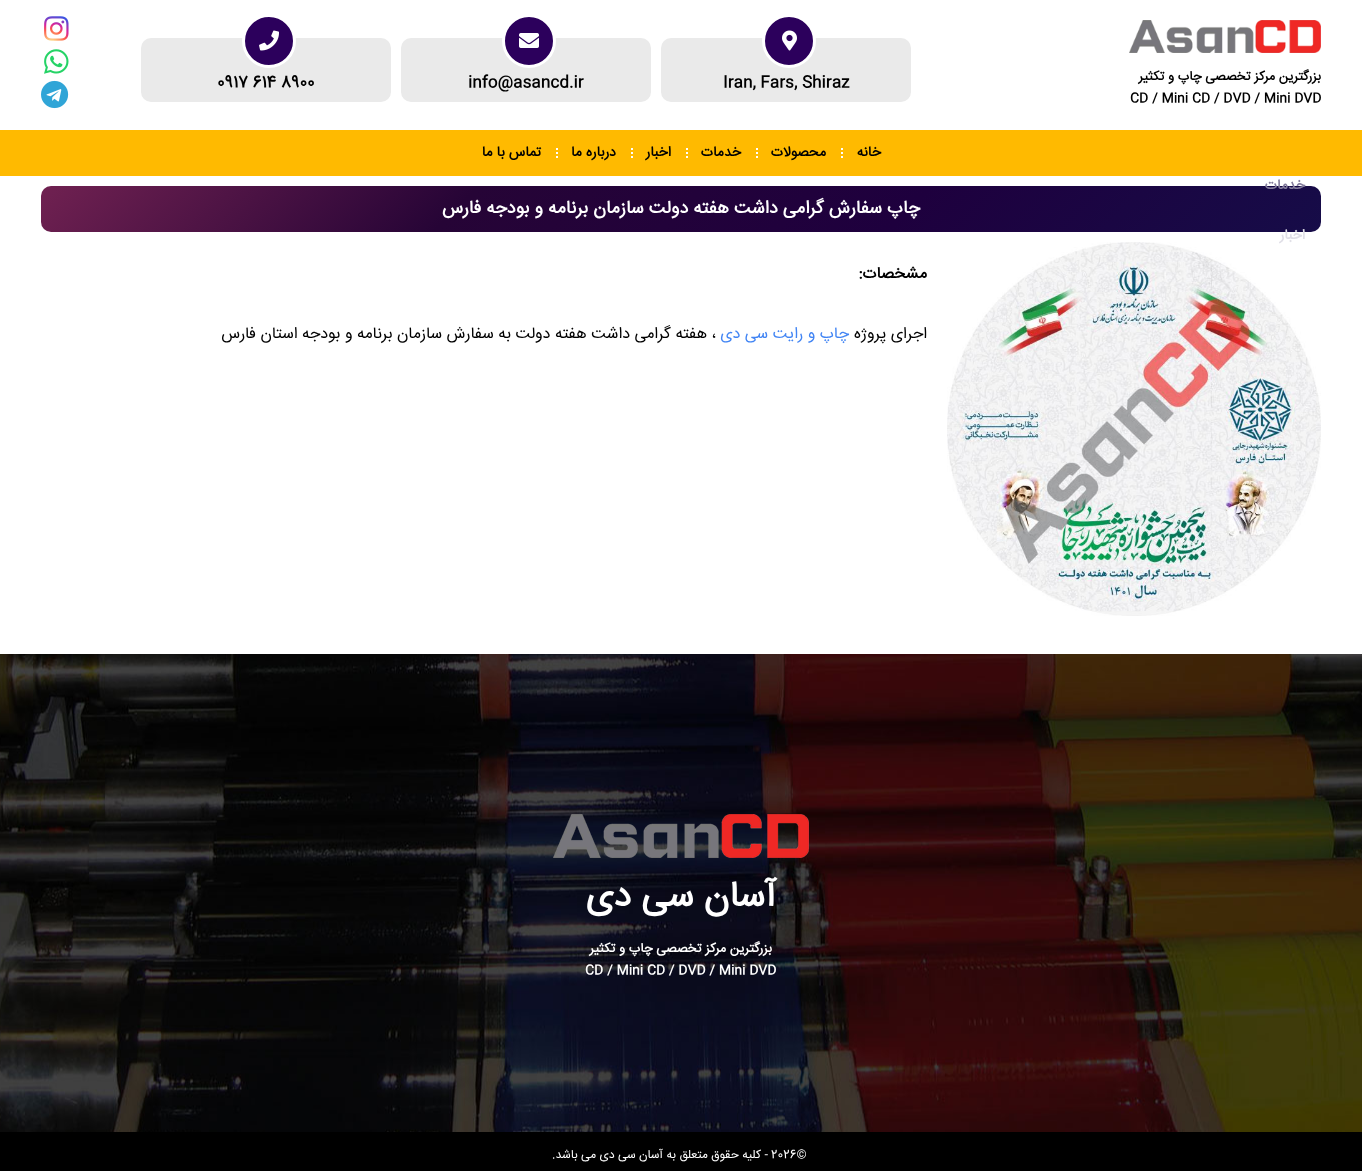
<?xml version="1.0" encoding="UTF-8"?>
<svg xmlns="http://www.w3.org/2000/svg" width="1362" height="1171">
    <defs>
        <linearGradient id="g1" gradientUnits="userSpaceOnUse" x1="1013" y1="541" x2="350" y2="-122"><stop offset="0" stop-color="#160C48"/><stop offset="0.33" stop-color="#1E003E"/><stop offset="0.67" stop-color="#260436"/><stop offset="1" stop-color="#702151"/></linearGradient>
    </defs>
    <rect width="100%" height="100%" fill="#FFFFFF"/>
    <image x="1129" y="20" width="192" height="33" href="img_01.png"/>
    <image x="44" y="16" width="25" height="25" href="img_02.png"/>
    <image x="44" y="49" width="25" height="25" href="img_03.png"/>
    <image x="41" y="80" width="28" height="29" href="img_04.png"/>
    <text x="1321" y="80" font-family="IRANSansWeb" font-size="13" font-weight="700" direction="rtl" fill="#000000">بزرگترین مرکز تخصصی چاپ و تکثیر</text>
    <text x="1130" y="102" font-family="IRANSansWeb" font-size="13" font-weight="700" fill="#000000">CD / Mini CD / DVD / Mini DVD</text>
    <rect x="661" y="38" width="250" height="64" rx="10" fill="#EAEAEA"/>
    <circle cx="789" cy="41" r="25.5" fill="#2C005C" stroke="#FFFFFF" stroke-width="3"/>
    <image x="782" y="30" width="15" height="21" href="img_05.png"/>
    <text x="723" y="87" font-family="IRANSansWeb" font-size="16" font-weight="700" fill="#000000">Iran, Fars, Shiraz</text>
    <rect x="401" y="38" width="250" height="64" rx="10" fill="#EAEAEA"/>
    <circle cx="529" cy="41" r="25.5" fill="#2C005C" stroke="#FFFFFF" stroke-width="3"/>
    <image x="519" y="33" width="20" height="15" href="img_06.png"/>
    <text x="468" y="87" font-family="IRANSansWeb" font-size="16" font-weight="700" fill="#000000">info@asancd.ir</text>
    <rect x="141" y="38" width="250" height="64" rx="10" fill="#EAEAEA"/>
    <circle cx="269" cy="41" r="25.5" fill="#2C005C" stroke="#FFFFFF" stroke-width="3"/>
    <image x="259" y="30" width="20" height="21" href="img_07.png"/>
    <text x="217" y="87" font-family="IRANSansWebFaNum" font-size="16" font-weight="700" fill="#000000">0917 614 8900</text>
    <rect x="41" y="186" width="1280" height="46" rx="10" fill="url(#g1)"/>
    <text x="1305" y="189" font-family="IRANSansWeb" font-size="14" font-weight="700" direction="rtl" fill="#837C9C">خدمات</text>
    <image x="947" y="242" width="374" height="374" href="img_09.png"/>
    <text x="1305" y="239" font-family="IRANSansWeb" font-size="14" font-weight="700" direction="rtl" fill="#E0DFE7">اخبار</text>
    <rect x="0" y="130" width="1362" height="46" fill="#FFBA00"/>
    <image x="841" y="148" width="2" height="10" href="img_08.png"/>
    <text x="881" y="156" font-family="IRANSansWeb" font-size="14" font-weight="700" direction="rtl" fill="#000000">خانه</text>
    <image x="756" y="148" width="2" height="10" href="img_08.png"/>
    <text x="826" y="156" font-family="IRANSansWeb" font-size="14" font-weight="700" direction="rtl" fill="#000000">محصولات</text>
    <image x="686" y="148" width="2" height="10" href="img_08.png"/>
    <text x="741" y="156" font-family="IRANSansWeb" font-size="14" font-weight="700" direction="rtl" fill="#000000">خدمات</text>
    <image x="631" y="148" width="2" height="10" href="img_08.png"/>
    <text x="671" y="156" font-family="IRANSansWeb" font-size="14" font-weight="700" direction="rtl" fill="#000000">اخبار</text>
    <image x="556" y="148" width="2" height="10" href="img_08.png"/>
    <text x="616" y="156" font-family="IRANSansWeb" font-size="14" font-weight="700" direction="rtl" fill="#000000">درباره ما</text>
    <text x="541" y="156" font-family="IRANSansWeb" font-size="14" font-weight="700" direction="rtl" fill="#000000">تماس با ما</text>
    <text x="920" y="213" font-family="IRANSansWeb" font-size="18" font-weight="700" direction="rtl" fill="#FFFFFF">چاپ سفارش گرامی داشت هفته دولت سازمان برنامه و بودجه فارس</text>
    <text x="927" y="278" font-family="IRANSansWeb" font-size="16" font-weight="700" direction="rtl" fill="#000000">مشخصات:</text>
    <text x="927" y="338" font-family="IRANSansWeb" font-size="16" direction="rtl" fill="#000000">اجرای پروژه</text>
    <text x="849" y="338" font-family="IRANSansWeb" font-size="16" direction="rtl" fill="#4285F4">چاپ و رایت سی دی</text>
    <text x="716" y="338" font-family="IRANSansWeb" font-size="16" direction="rtl" fill="#000000">، هفته گرامی داشت هفته دولت به سفارش سازمان برنامه و بودجه استان فارس</text>
    <image x="0" y="654" width="1362" height="478" href="img_10.png"/>
    <image x="553" y="814" width="256" height="44" href="img_11.png"/>
    <text x="776" y="906" font-family="IRANSansWebFaNum" font-size="36" font-weight="700" direction="rtl" fill="#FFFFFF">آسان سی دی</text>
    <text x="772" y="952" font-family="IRANSansWeb" font-size="13" font-weight="700" direction="rtl" fill="#FFFFFF">بزرگترین مرکز تخصصی چاپ و تکثیر</text>
    <text x="585" y="974" font-family="IRANSansWeb" font-size="13" font-weight="700" fill="#FFFFFF">CD / Mini CD / DVD / Mini DVD</text>
    <rect x="0" y="1132" width="1362" height="39" fill="#000000"/>
    <text x="771" y="1158" font-family="IRANSansWebFaNum" font-size="12" fill="#FFFFFF">2026©</text>
    <text x="768" y="1158" font-family="IRANSansWebFaNum" font-size="12" direction="rtl" fill="#FFFFFF">- کلیه حقوق متعلق به</text>
    <text x="663" y="1158" font-family="IRANSansWebFaNum" font-size="12" direction="rtl" fill="#FFFFFF">آسان سی دی</text>
    <text x="596" y="1158" font-family="IRANSansWebFaNum" font-size="12" direction="rtl" fill="#FFFFFF">می باشد.</text>
</svg>
